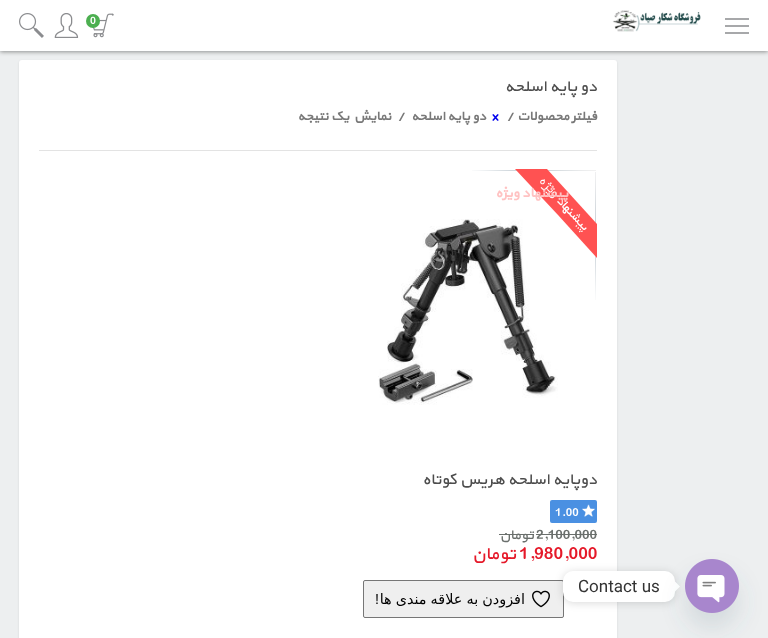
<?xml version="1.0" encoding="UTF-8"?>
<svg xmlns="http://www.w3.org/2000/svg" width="768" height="638">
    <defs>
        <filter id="blur1" x="-50%" y="-200%" width="200%" height="500%"><feGaussianBlur stdDeviation="1"/></filter>
        <filter id="blur2" x="-50%" y="-200%" width="200%" height="500%"><feGaussianBlur stdDeviation="4"/></filter>
        <filter id="blur3" x="-50%" y="-200%" width="200%" height="500%"><feGaussianBlur stdDeviation="12"/></filter>
        <filter id="blur4" x="-50%" y="-200%" width="200%" height="500%"><feGaussianBlur stdDeviation="2"/></filter>
    </defs>
    <rect width="100%" height="100%" fill="#EDEFF0"/>
    <rect x="19" y="61" width="598" height="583" rx="3" fill="#000000" fill-opacity="0.1" filter="url(#blur1)"/>
    <rect x="19" y="60" width="598" height="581" rx="3" fill="#FFFFFF"/>
    <rect x="363.5" y="580.5" width="200" height="37" rx="1.5" fill="#EFEFEF" stroke="#767676"/>
    <rect x="563" y="572" width="112" height="31" rx="10" fill="#000000" fill-opacity="0.15" filter="url(#blur2)"/>
    <rect x="563" y="571" width="112" height="31" rx="10" fill="#FFFFFF"/>
    <path d="M 675 591.5 V 581.5 L 680 586.5 Z" fill="#FFFFFF"/>
    <rect x="685" y="575" width="54" height="54" rx="27" fill="#49687E" fill-opacity="0.16" filter="url(#blur3)"/>
    <image x="685" y="559" width="54" height="54" href="img_01.png"/>
    <text x="578" y="592" font-family="Roboto" font-size="17" fill="#333333">Contact us</text>
    <rect x="0" y="1" width="768" height="51" fill="#000000" fill-opacity="0.4" filter="url(#blur4)"/>
    <rect x="0" y="0" width="768" height="51" fill="#FFFFFF"/>
    <path d="M 749 26 H 725 M 749 19 H 725 M 725 33 H 749" fill="none" stroke="#8B8C8F" stroke-width="1.4"/>
    <image x="612" y="10" width="89" height="22" href="img_02.png"/>
    <image x="92" y="13" width="22" height="25" href="img_03.png"/>
    <circle cx="93" cy="21" r="7" fill="#4CAF50"/>
    <text x="90" y="24" font-family="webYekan" font-size="11" fill="#FFFFFF">0</text>
    <image x="54" y="13" width="25" height="25" href="img_04.png"/>
    <image x="19" y="13" width="25" height="25" href="img_05.png"/>
    <text x="597" y="91" font-family="webYekan" font-size="16" direction="rtl" fill="#4D4D4D">دو پایه اسلحه</text>
    <text x="597" y="120" font-family="webYekan" font-size="13" font-weight="700" direction="rtl" fill="#787878">فیلتر محصولات</text>
    <text x="506" y="120" font-family="webYekan" font-size="13" font-weight="700" fill="#787878">/</text>
    <image x="492" y="114" width="7" height="7" href="img_06.png"/>
    <text x="486" y="120" font-family="webYekan" font-size="13" font-weight="700" direction="rtl" fill="#787878">دو پایه اسلحه</text>
    <text x="397" y="120" font-family="webYekan" font-size="13" font-weight="700" fill="#787878">/</text>
    <text x="391" y="120" font-family="webYekan" font-size="13" font-weight="700" direction="rtl" fill="#787878">نمایش یک نتیجه</text>
    <rect x="39" y="150" width="558" height="1" fill="#E3E3E3"/>
    <image x="378" y="219" width="180" height="186" href="img_08.png"/>
    <image x="472" y="169" width="125" height="131" href="img_07.png"/>
    <text x="568" y="197" font-family="webYekan" font-size="13.75" font-weight="700" direction="rtl" fill="#FFC2C2">پیشنهاد ویژه</text>
    <text x="597" y="484" font-family="webYekan" font-size="16" direction="rtl" fill="#4D4D4D">دوپایه اسلحه هریس کوتاه</text>
    <rect x="550" y="500" width="47" height="23" rx="2" fill="#4A90E2"/>
    <image x="582" y="504" width="13" height="13" href="img_09.png"/>
    <text x="555" y="516" font-family="webYekan" font-size="12" fill="#FFFFFF">1.00</text>
    <text x="536" y="539" font-family="webYekan" font-size="14" fill="#6A6F6C">2,100,000</text>
    <rect x="536" y="534" width="61" height="1" fill="#6A6F6C"/>
    <rect x="499" y="534" width="35" height="1" fill="#6A6F6C"/>
    <text x="534" y="539" font-family="webYekan" font-size="14" direction="rtl" fill="#6A6F6C">تومان</text>
    <text x="519" y="559" font-family="webYekan" font-size="18" fill="#E51929">1,980,000</text>
    <text x="516" y="559" font-family="webYekan" font-size="18" direction="rtl" fill="#E51929">تومان</text>
    <image x="532" y="590" width="18" height="18" href="img_10.png"/>
    <text x="525" y="604" word-spacing="-0.5" font-family="DejaVu Sans" font-size="14.4" direction="rtl" fill="#000000">افزودن به علاقه مندی ها</text>
    <text x="379" y="604" font-family="Liberation Sans" font-size="14.4" direction="rtl" fill="#000000">!</text>
</svg>
